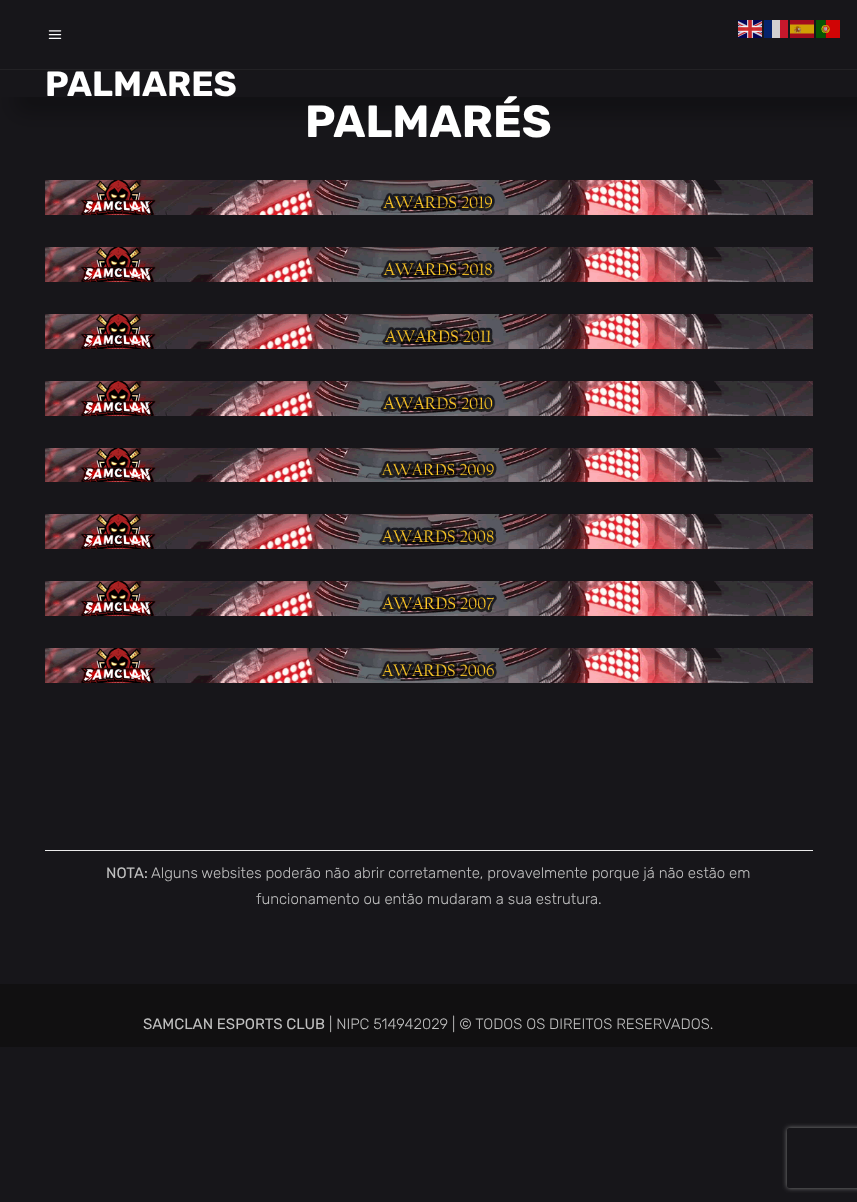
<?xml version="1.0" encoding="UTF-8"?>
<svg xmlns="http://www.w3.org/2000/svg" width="857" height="1202">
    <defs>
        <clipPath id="clip1"><path d="M 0 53 H 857 V 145 H 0 Z M 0 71 H 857 V 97 H 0 Z" clip-rule="evenodd"/></clipPath>
        <filter id="blur1" x="-50%" y="-200%" width="200%" height="500%"><feGaussianBlur stdDeviation="10.5"/></filter>
        <clipPath id="clip2"><path d="M 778 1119 H 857 V 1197 H 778 Z M 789 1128 H 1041 C 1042 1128 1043 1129 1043 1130 V 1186 C 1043 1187 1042 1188 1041 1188 H 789 C 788 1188 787 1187 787 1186 V 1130 C 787 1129 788 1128 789 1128 Z" clip-rule="evenodd"/></clipPath>
        <filter id="blur2" x="-50%" y="-200%" width="200%" height="500%"><feGaussianBlur stdDeviation="2.5"/></filter>
    </defs>
    <rect width="100%" height="100%" fill="#17161A"/>
    <image x="738" y="20" width="24" height="18" href="img_01.png"/>
    <rect x="764" y="20" width="8" height="18" fill="#05236B"/>
    <rect x="772" y="20" width="8" height="18" fill="#D1D0D1"/>
    <rect x="780" y="20" width="8" height="18" fill="#C7182C"/>
    <image x="790" y="20" width="24" height="18" href="img_02.png"/>
    <image x="816" y="20" width="24" height="18" href="img_03.png"/>
    <g clip-path="url(#clip1)">
        <rect x="15" y="86" width="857" height="26" fill="#010101" fill-opacity="0.3" filter="url(#blur1)"/>
    </g>
    <text x="45" y="96" font-family="Rubik" font-size="35" font-weight="700" fill="#FFFFFF">PALMARÉS</text>
    <rect x="199" y="64" width="11" height="5" fill="#17161A"/>
    <rect x="0" y="69" width="857" height="1" fill="#232225"/>
    <image x="48" y="30" width="14" height="9" href="img_04.png"/>
    <text x="305" y="137" font-family="Rubik" font-size="45" font-weight="700" fill="#FFFFFF">PALMARÉS</text>
    <image x="45" y="180" width="768" height="35" href="img_05.png"/>
    <image x="45" y="247" width="768" height="35" href="img_06.png"/>
    <image x="45" y="314" width="768" height="35" href="img_07.png"/>
    <image x="45" y="381" width="768" height="35" href="img_08.png"/>
    <image x="45" y="448" width="768" height="34" href="img_09.png"/>
    <image x="45" y="514" width="768" height="35" href="img_10.png"/>
    <image x="45" y="581" width="768" height="35" href="img_11.png"/>
    <image x="45" y="648" width="768" height="35" href="img_12.png"/>
    <rect x="45" y="850" width="768" height="1" fill="#EBEBEB"/>
    <text x="106" y="878" font-family="Rubik" font-size="15" fill="#C0C0C0">NOTA:</text>
    <text x="151" y="878" font-family="Rubik" font-size="15" font-weight="300" fill="#C0C0C0">Alguns websites poderão não abrir corretamente, provavelmente porque já não estão em</text>
    <text x="256" y="904" font-family="Rubik" font-size="15" font-weight="300" fill="#C0C0C0">funcionamento ou então mudaram a sua estrutura.</text>
    <rect x="0" y="984" width="857" height="63" fill="#111011"/>
    <text x="143" y="1029" font-family="Rubik" font-size="15" fill="#C0C0C0">SAMCLAN ESPORTS CLUB</text>
    <text x="329" y="1029" font-family="Rubik" font-size="15" font-weight="300" fill="#C0C0C0">| NIPC 514942029 | © TODOS OS DIREITOS RESERVADOS.</text>
    <g clip-path="url(#clip2)">
        <rect x="787" y="1128" width="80" height="60" rx="2" fill="#808080" filter="url(#blur2)"/>
    </g>
</svg>
